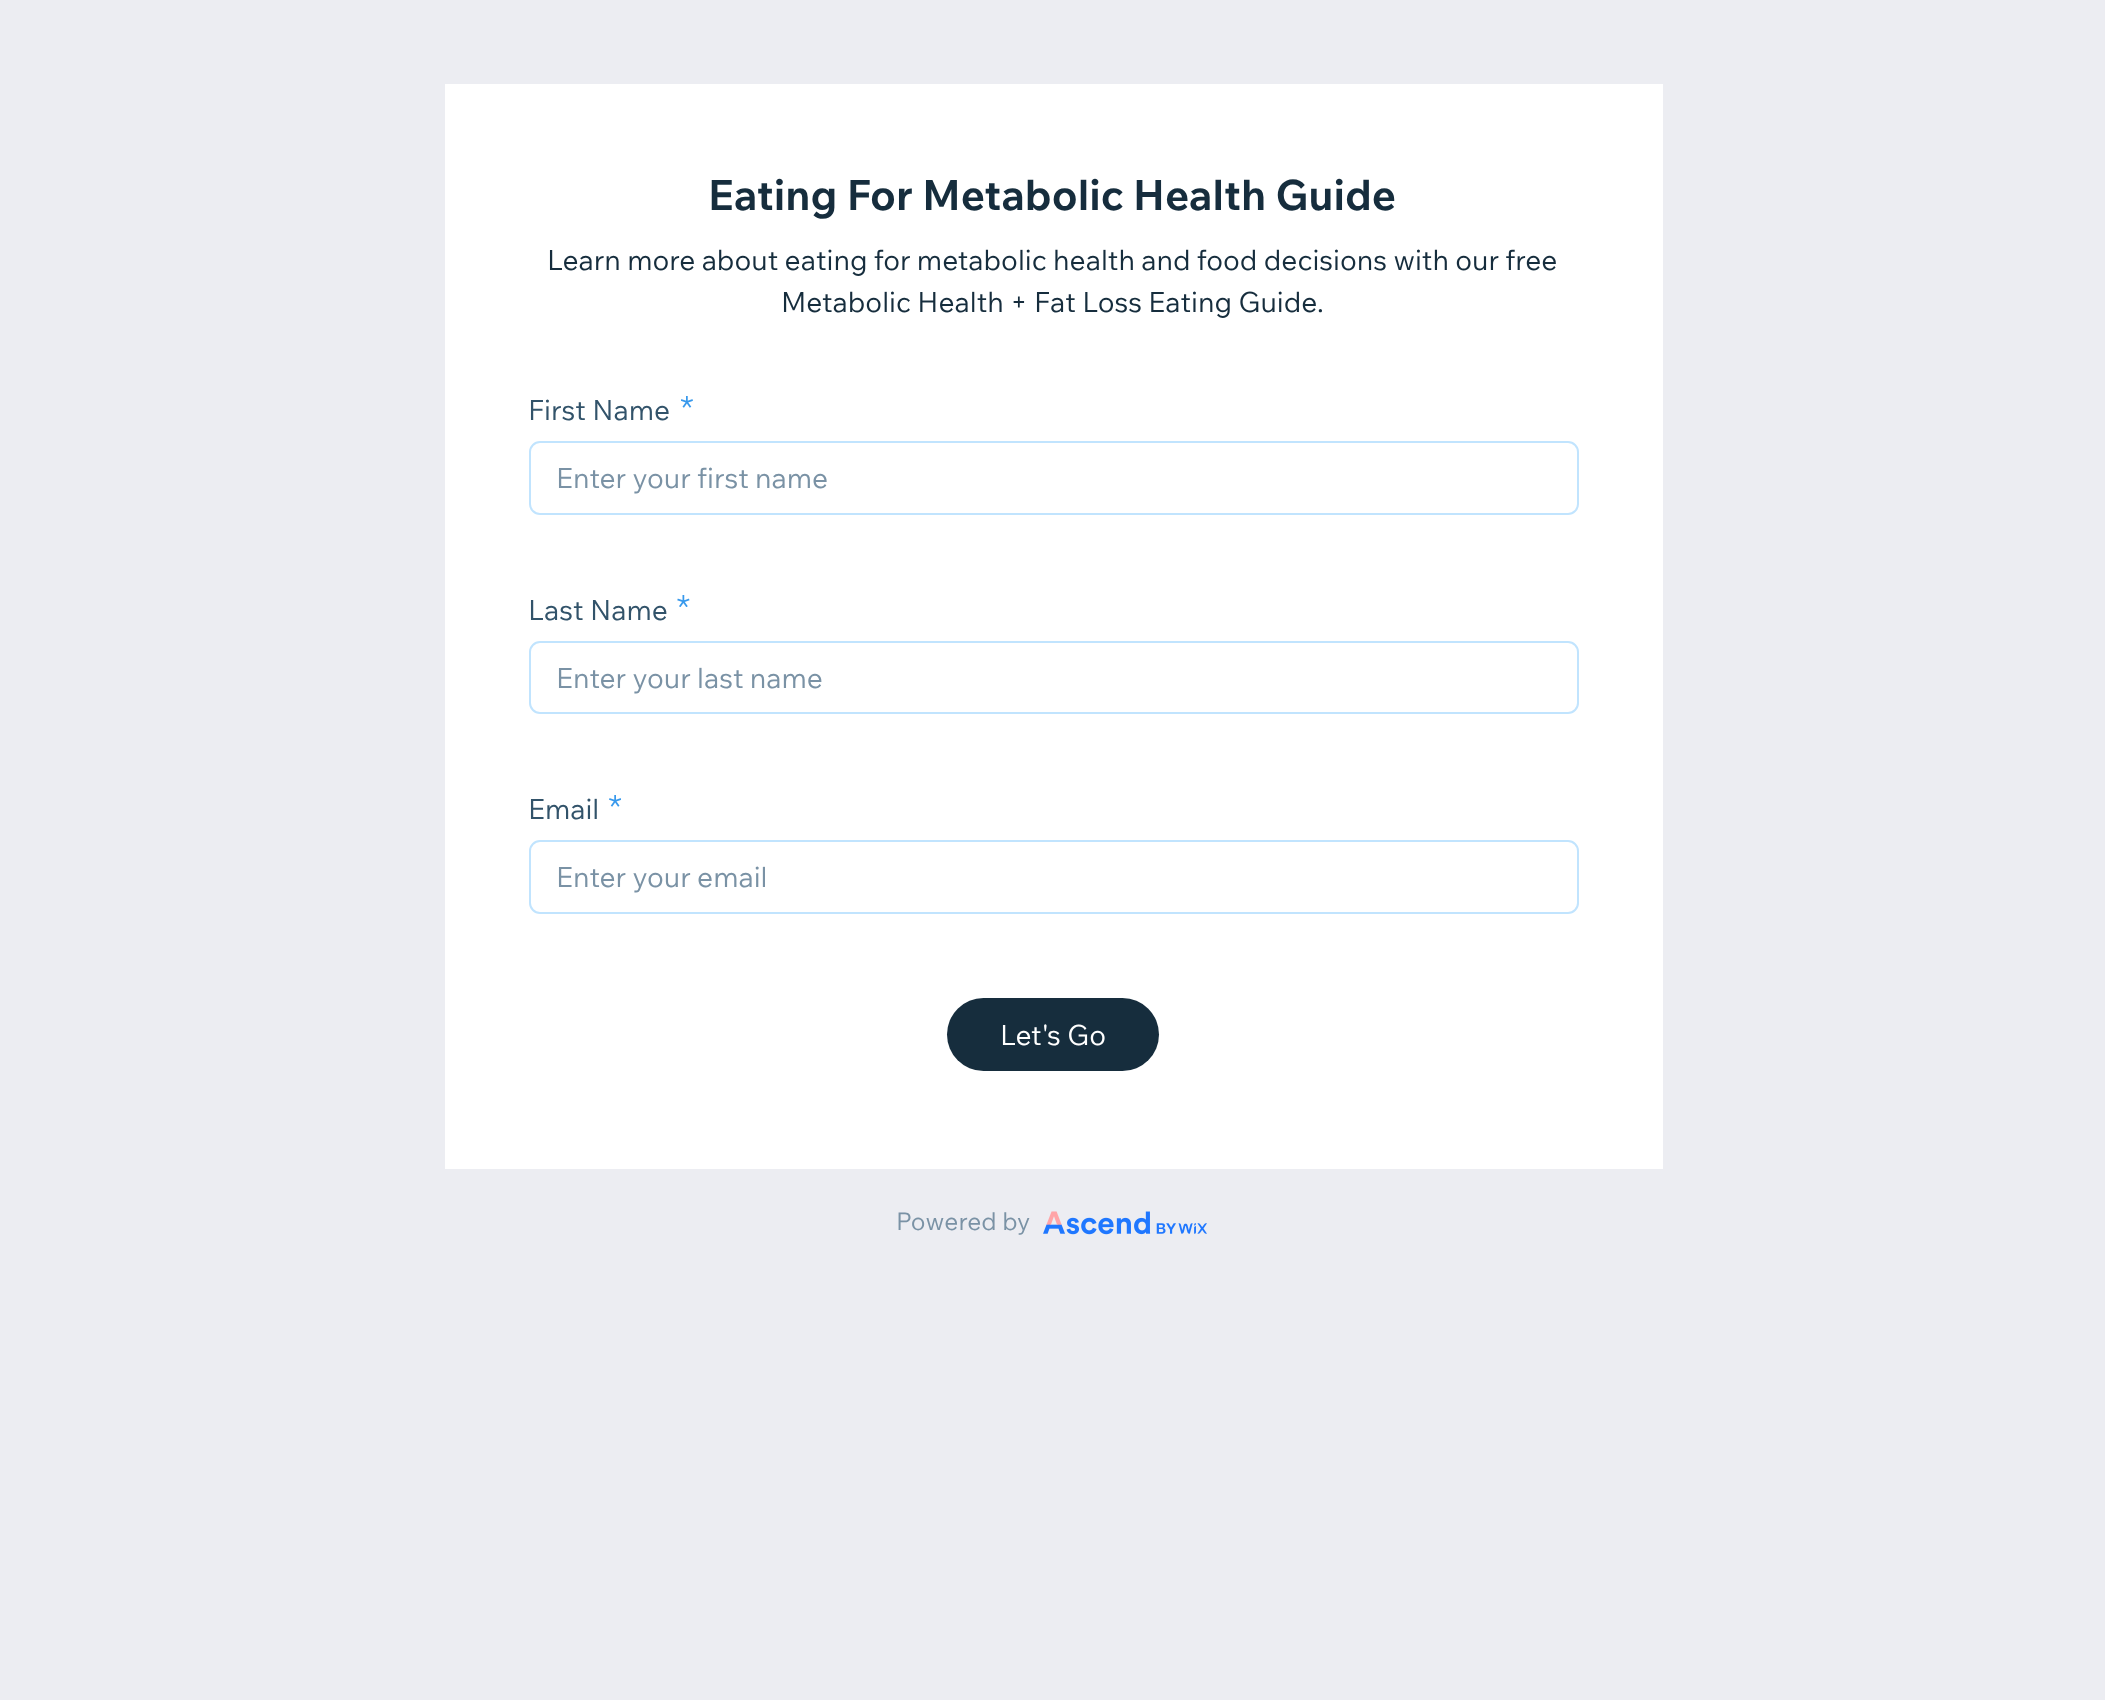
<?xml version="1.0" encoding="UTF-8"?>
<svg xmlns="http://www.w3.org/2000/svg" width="2105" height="1700">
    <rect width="100%" height="100%" fill="#ECEDF2"/>
    <rect x="445" y="84" width="1218" height="1085" fill="#FFFFFF"/>
    <text x="708" y="210" font-family="Wix Madefor Text" font-size="42" font-weight="700" fill="#162D3D">Eating For Metabolic Health Guide</text>
    <text x="547" y="270" font-family="Wix Madefor Text" font-size="28" fill="#162D3D">Learn more about eating for metabolic health and food decisions with our free</text>
    <text x="781" y="312" font-family="Wix Madefor Text" font-size="28" fill="#162D3D">Metabolic Health + Fat Loss Eating Guide.</text>
    <text x="528" y="420" font-family="Wix Madefor Text" font-size="28" fill="#32536A">First Name</text>
    <image x="681" y="396" width="12" height="12" href="img_01.png"/>
    <rect x="530" y="442" width="1048" height="72" rx="10" fill="none" stroke="#C1E4FE" stroke-width="2"/>
    <text x="556" y="488" font-family="Wix Madefor Text" font-size="28" fill="#7A92A5">Enter your first name</text>
    <text x="528" y="620" font-family="Wix Madefor Text" font-size="28" fill="#32536A">Last Name</text>
    <image x="677" y="595" width="13" height="12" href="img_02.png"/>
    <rect x="530" y="642" width="1048" height="71" rx="10" fill="none" stroke="#C1E4FE" stroke-width="2"/>
    <text x="556" y="688" font-family="Wix Madefor Text" font-size="28" fill="#7A92A5">Enter your last name</text>
    <text x="528" y="819" font-family="Wix Madefor Text" font-size="28" fill="#32536A">Email</text>
    <image x="609" y="795" width="12" height="12" href="img_03.png"/>
    <rect x="530" y="841" width="1048" height="72" rx="10" fill="none" stroke="#C1E4FE" stroke-width="2"/>
    <text x="556" y="887" font-family="Wix Madefor Text" font-size="28" fill="#7A92A5">Enter your email</text>
    <rect x="947" y="998" width="212" height="73" rx="36.5" fill="#162D3D"/>
    <text x="1000" y="1045" font-family="Wix Madefor Text" font-size="28" fill="#FFFFFF">Let's Go</text>
    <text x="896" y="1230" font-family="Wix Madefor Text" font-size="24.5" fill="#7A92A5">Powered by</text>
    <image x="1043" y="1211" width="164" height="24" href="img_04.png"/>
</svg>
